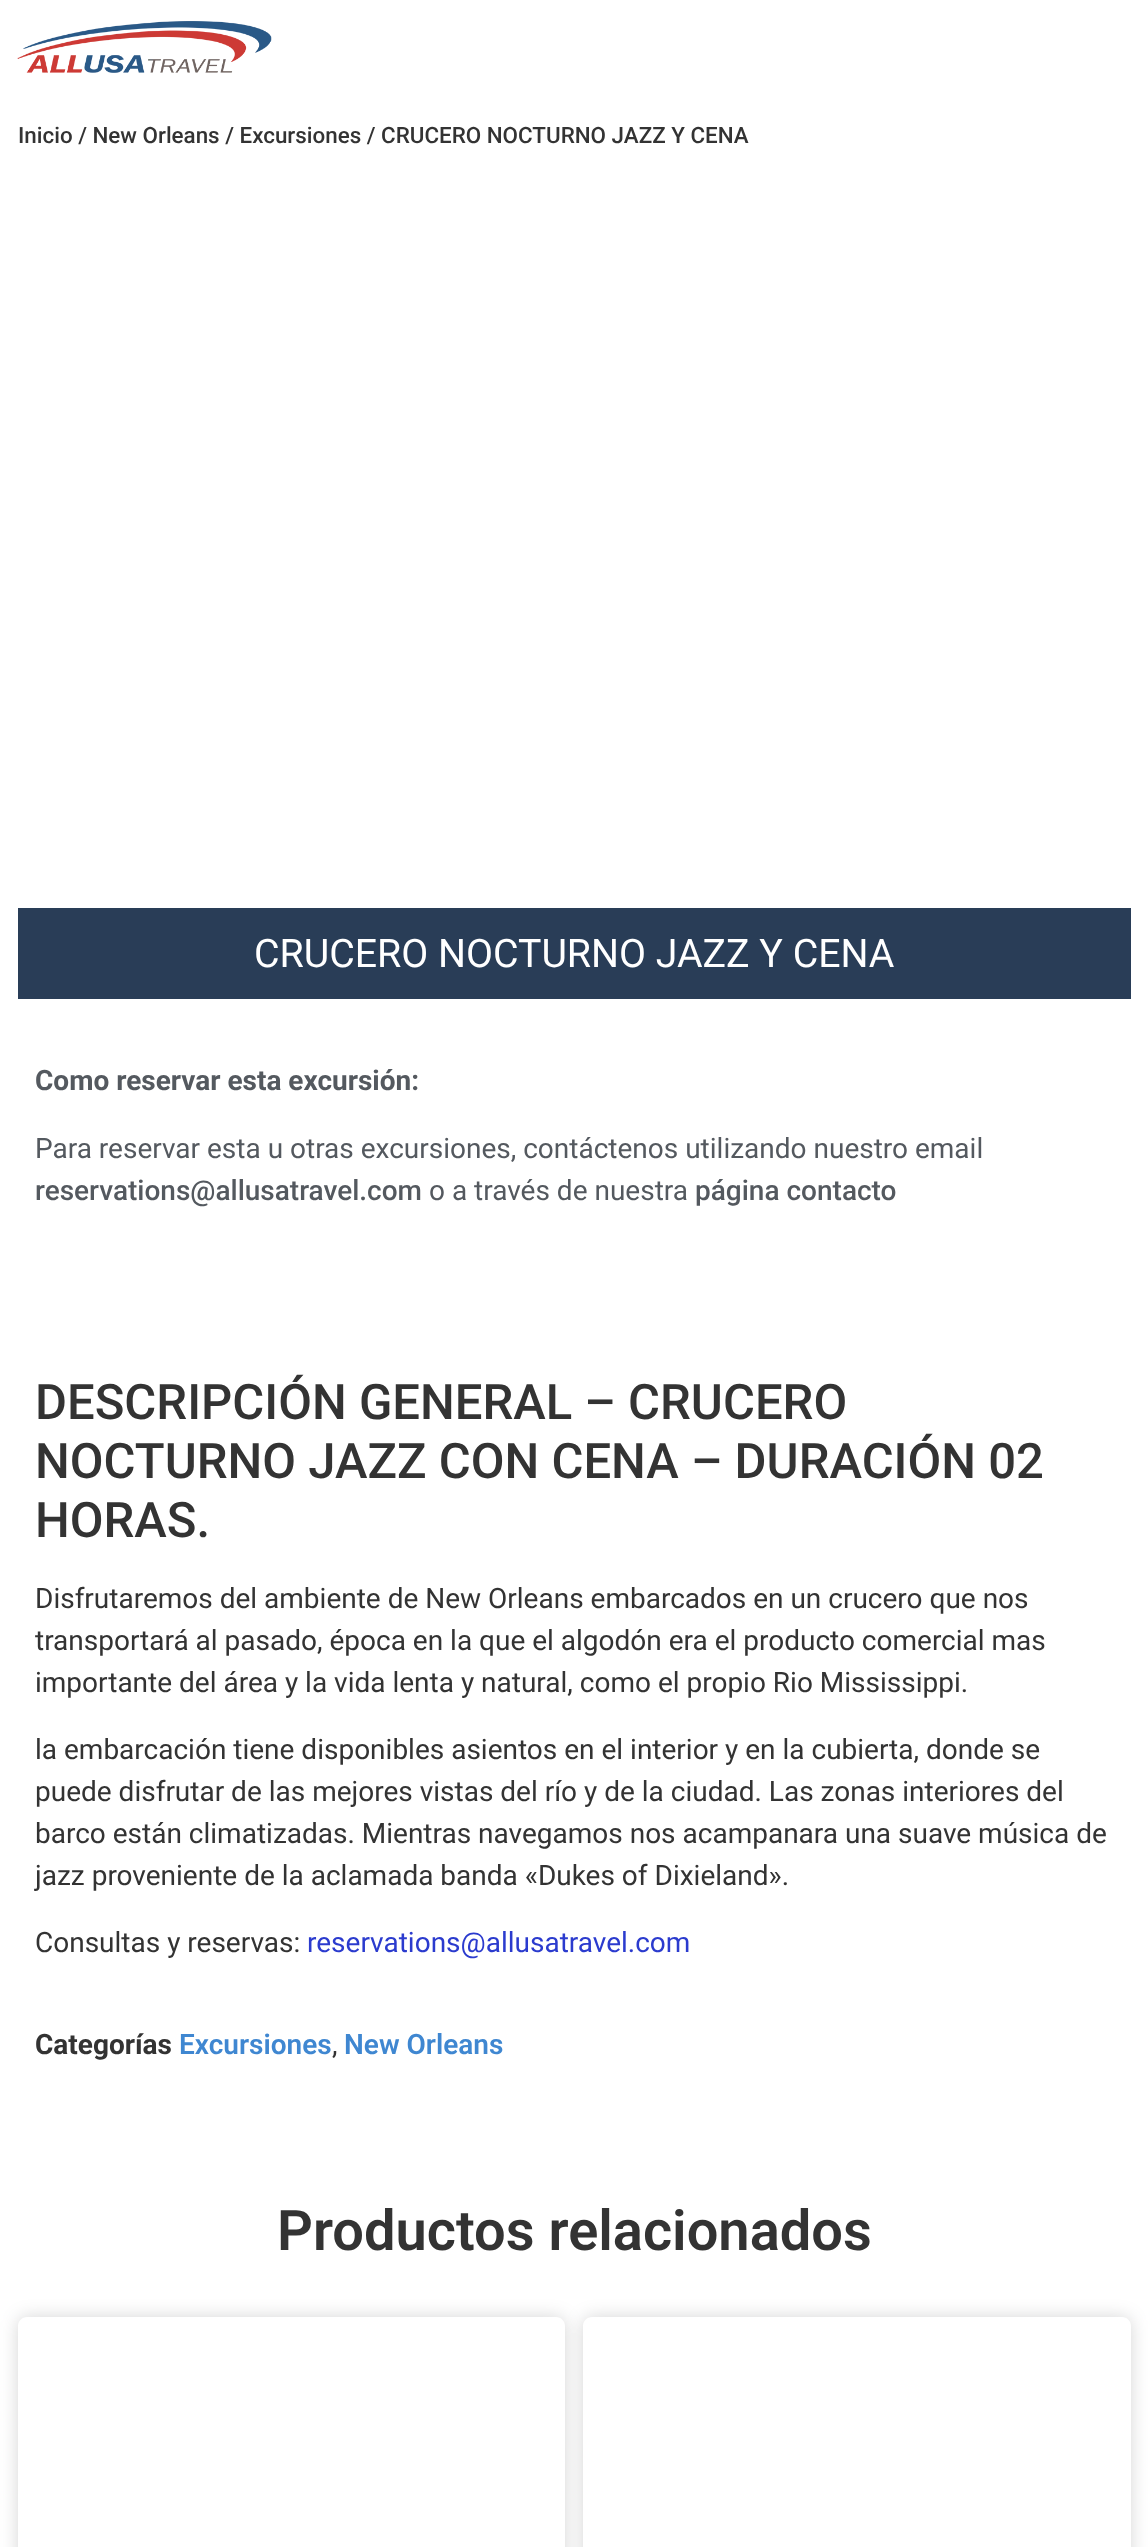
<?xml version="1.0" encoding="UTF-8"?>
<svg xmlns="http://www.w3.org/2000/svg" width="1148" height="2547">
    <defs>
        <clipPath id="clip1"><path d="M 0 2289 H 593 V 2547 H 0 Z M 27 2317 H 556 C 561 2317 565 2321 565 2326 V 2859 C 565 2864 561 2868 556 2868 H 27 C 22 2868 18 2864 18 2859 V 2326 C 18 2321 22 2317 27 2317 Z" clip-rule="evenodd"/></clipPath>
        <filter id="blur1" x="-50%" y="-200%" width="200%" height="500%"><feGaussianBlur stdDeviation="9"/></filter>
        <clipPath id="clip2"><path d="M 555 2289 H 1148 V 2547 H 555 Z M 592 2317 H 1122 C 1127 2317 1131 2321 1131 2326 V 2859 C 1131 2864 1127 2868 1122 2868 H 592 C 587 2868 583 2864 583 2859 V 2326 C 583 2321 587 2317 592 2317 Z" clip-rule="evenodd"/></clipPath>
    </defs>
    <rect width="100%" height="100%" fill="#FFFFFF"/>
    <image x="17" y="21" width="255" height="52" href="img_01.png"/>
    <text x="18" y="143" font-family="Roboto" font-size="22.4" font-weight="500" fill="#333333">Inicio / New Orleans / Excursiones / CRUCERO NOCTURNO JAZZ Y CENA</text>
    <rect x="18" y="908" width="1113" height="91" fill="#293D57"/>
    <text x="254" y="967" font-family="Roboto" font-size="39.25" fill="#FFFFFF">CRUCERO NOCTURNO JAZZ Y CENA</text>
    <text x="35" y="1090" font-family="Roboto" font-size="28" font-weight="700" fill="#54595F">Como reservar esta excursión:</text>
    <text x="35" y="1158" font-family="Roboto" font-size="28" fill="#54595F">Para reservar esta u otras excursiones, contáctenos utilizando nuestro email</text>
    <text x="35" y="1200" font-family="Roboto" font-size="28" font-weight="500" fill="#54595F">reservations@allusatravel.com</text>
    <text x="429" y="1200" font-family="Roboto" font-size="28" fill="#54595F">o a través de nuestra</text>
    <text x="695" y="1200" font-family="Roboto" font-size="28" font-weight="500" fill="#54595F">página contacto</text>
    <text font-family="Roboto" font-size="49" font-weight="500" fill="#333333">
        <tspan x="35" y="1419">DESCRIPCIÓN GENERAL – CRUCERO</tspan>
        <tspan x="35" y="1478">NOCTURNO JAZZ CON CENA – DURACIÓN 02</tspan>
        <tspan x="35" y="1537">HORAS.</tspan>
    </text>
    <text font-family="Roboto" font-size="28" fill="#333333">
        <tspan x="35" y="1608">Disfrutaremos del ambiente de New Orleans embarcados en un crucero que nos</tspan>
        <tspan x="35" y="1650">transportará al pasado, época en la que el algodón era el producto comercial mas</tspan>
        <tspan x="35" y="1692">importante del área y la vida lenta y natural, como el propio Rio Mississippi.</tspan>
    </text>
    <text font-family="Roboto" font-size="28" fill="#333333">
        <tspan x="35" y="1759">la embarcación tiene disponibles asientos en el interior y en la cubierta, donde se</tspan>
        <tspan x="35" y="1801">puede disfrutar de las mejores vistas del río y de la ciudad. Las zonas interiores del</tspan>
        <tspan x="35" y="1843">barco están climatizadas. Mientras navegamos nos acampanara una suave música de</tspan>
        <tspan x="35" y="1885">jazz proveniente de la aclamada banda «Dukes of Dixieland».</tspan>
    </text>
    <text x="35" y="1952" font-family="Roboto" font-size="28" fill="#333333">Consultas y reservas:</text>
    <text x="307" y="1952" font-family="Roboto" font-size="28" fill="#2B3BCE">reservations@allusatravel.com</text>
    <text x="35" y="2054" font-family="Roboto" font-size="28" font-weight="700" fill="#333333">Categorías</text>
    <text x="179" y="2054" font-family="Roboto" font-size="28" font-weight="600" fill="#3F87D1">Excursiones</text>
    <text x="332" y="2054" font-family="Roboto" font-size="28" fill="#333333">,</text>
    <text x="344" y="2054" font-family="Roboto" font-size="28" font-weight="600" fill="#3F87D1">New Orleans</text>
    <text x="277" y="2250" font-family="Roboto" font-size="56" font-weight="600" fill="#333333">Productos relacionados</text>
    <g clip-path="url(#clip1)">
        <rect x="18" y="2317" width="547" height="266" rx="9" fill="#000000" fill-opacity="0.16" filter="url(#blur1)"/>
    </g>
    <g clip-path="url(#clip2)">
        <rect x="583" y="2317" width="548" height="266" rx="9" fill="#000000" fill-opacity="0.16" filter="url(#blur1)"/>
    </g>
</svg>
